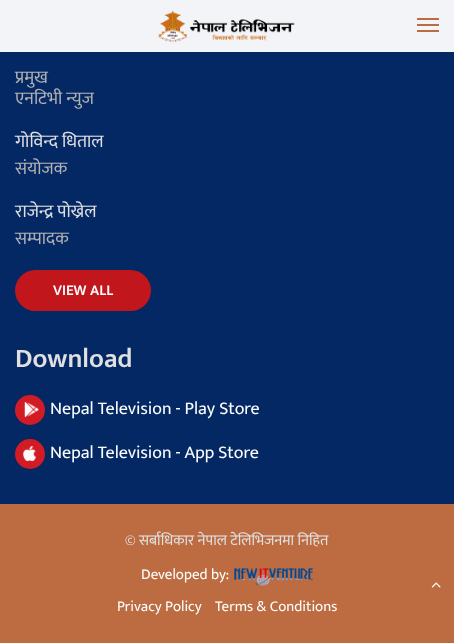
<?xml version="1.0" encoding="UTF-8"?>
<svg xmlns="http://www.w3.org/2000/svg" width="454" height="643">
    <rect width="100%" height="100%" fill="#042864"/>
    <rect x="0" y="0" width="454" height="52" fill="#FFFFFF" fill-opacity="0.95"/>
    <image x="158" y="10" width="137" height="32" href="img_01.png"/>
    <rect x="417" y="24" width="22" height="2" fill="#BC6C40"/>
    <rect x="417" y="18" width="22" height="2" fill="#BC6C40"/>
    <rect x="417" y="30" width="22" height="2" fill="#BC6C40"/>
    <text font-family="Mukta" font-size="18" fill="#B3B2B2">
        <tspan x="15" y="83">प्रमुख</tspan>
        <tspan x="15" y="104">एनटिभी न्युज</tspan>
    </text>
    <text x="15" y="147" font-family="Mukta" font-size="18" fill="#E0E0E1">गोविन्द धिताल</text>
    <text x="15" y="174" font-family="Mukta" font-size="18" fill="#B3B2B2">संयोजक</text>
    <text x="15" y="217" font-family="Mukta" font-size="18" fill="#E0E0E1">राजेन्द्र पोख्रेल</text>
    <text x="15" y="244" font-family="Mukta" font-size="18" fill="#B3B2B2">सम्पादक</text>
    <rect x="15" y="270" width="136" height="41" rx="20.5" fill="#C2161D"/>
    <text x="53" y="295" font-family="Mukta" font-size="15" font-weight="600" fill="#FCFDFD">VIEW ALL</text>
    <text x="15" y="367" font-family="Mukta" font-size="27" font-weight="600" fill="#E0E0E1">Download</text>
    <circle cx="30" cy="410" r="15" fill="#D11C26"/>
    <image x="24" y="402" width="15" height="15" href="img_02.png"/>
    <text x="50" y="414" font-family="Mukta" font-size="18" fill="#FCFDFD">Nepal Television - Play Store</text>
    <circle cx="30" cy="454" r="15" fill="#D11C26"/>
    <image x="23" y="446" width="14" height="15" href="img_03.png"/>
    <text x="50" y="458" font-family="Mukta" font-size="18" fill="#FCFDFD">Nepal Television - App Store</text>
    <rect x="0" y="504" width="454" height="139" fill="#BC6C40"/>
    <text x="125" y="545" font-family="Mukta" font-size="15" fill="#E0E0E1">© सर्बाधिकार नेपाल टेलिभिजनमा निहित</text>
    <text x="141" y="579" font-family="Mukta" font-size="15" fill="#FCFDFD">Developed by:</text>
    <image x="234" y="568" width="79" height="18" href="img_04.png"/>
    <text x="117" y="611" font-family="Mukta" font-size="15" fill="#FCFDFD">Privacy Policy</text>
    <text x="215" y="611" font-family="Mukta" font-size="15" fill="#FCFDFD">Terms &amp; Conditions</text>
    <image x="431" y="582" width="10" height="6" href="img_05.png"/>
</svg>
